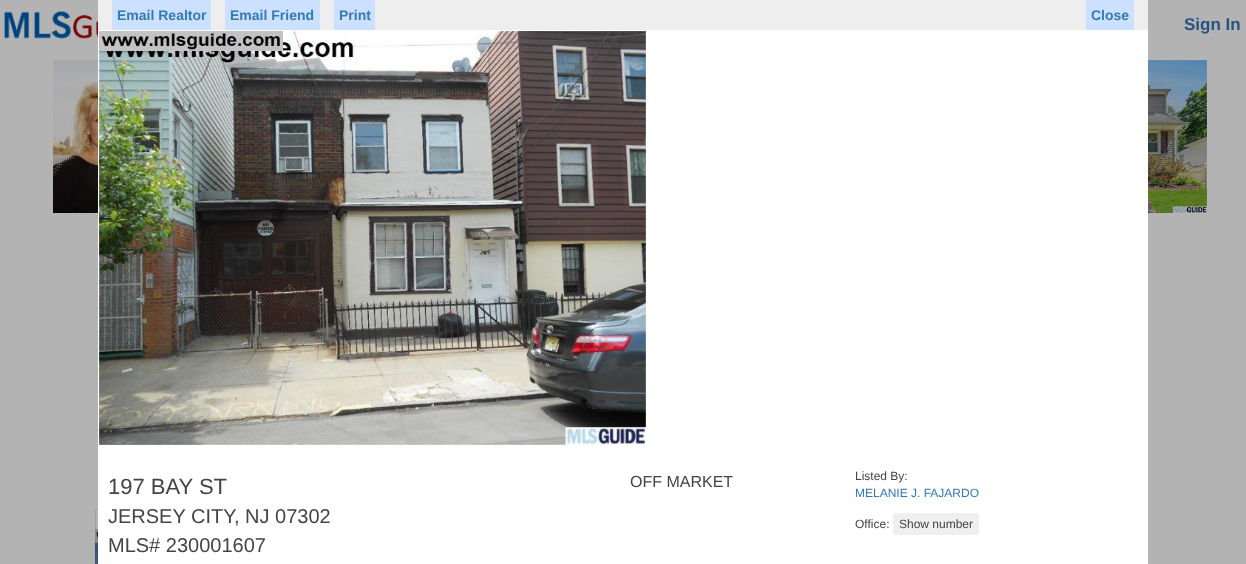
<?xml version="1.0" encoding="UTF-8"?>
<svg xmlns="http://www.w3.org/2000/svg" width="1246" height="564">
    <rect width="100%" height="100%" fill="#B3B3B3"/>
    <image x="3" y="11" width="95" height="28" href="img_01.png"/>
    <path d="M 95 509 H 435 L 434 510 H 96 Z" fill="#A1A1A1"/>
    <rect x="98" y="30" width="1050" height="534" fill="#FFFFFF"/>
    <rect x="98" y="0" width="1050" height="30" fill="#EEEEEE"/>
    <rect x="112" y="0" width="99" height="30" fill="#CCE0FF"/>
    <text x="117" y="20" font-family="Liberation Sans" font-size="14" font-weight="700" fill="#337AB7">Email Realtor</text>
    <rect x="225" y="0" width="95" height="30" fill="#CCE0FF"/>
    <text x="230" y="20" font-family="Liberation Sans" font-size="14" font-weight="700" fill="#337AB7">Email Friend</text>
    <rect x="334" y="0" width="41" height="30" fill="#CCE0FF"/>
    <text x="339" y="20" font-family="Liberation Sans" font-size="14" font-weight="700" fill="#337AB7">Print</text>
    <rect x="1086" y="0" width="48" height="30" fill="#CCE0FF"/>
    <text x="1091" y="20" font-family="Liberation Sans" font-size="14" font-weight="700" fill="#337AB7">Close</text>
    <image x="99" y="31" width="547" height="414" href="img_02.png"/>
    <text x="108" y="494" font-family="Liberation Sans" font-size="22" fill="#444444">197 BAY ST</text>
    <text font-family="Liberation Sans" font-size="20" fill="#444444">
        <tspan x="108" y="523">JERSEY CITY, NJ 07302</tspan>
        <tspan x="108" y="552">MLS# 230001607</tspan>
    </text>
    <text x="630" y="487" font-family="Liberation Sans" font-size="16" fill="#444444">OFF MARKET</text>
    <text x="855" y="480" font-family="Liberation Sans" font-size="12" fill="#444444">Listed By:</text>
    <text x="855" y="497" font-family="Liberation Sans" font-size="12" fill="#337AB7">MELANIE J. FAJARDO</text>
    <text x="855" y="528" font-family="Liberation Sans" font-size="12" fill="#444444">Office:</text>
    <rect x="893" y="513" width="86" height="22" rx="3" fill="#EFEFEF"/>
    <text x="899" y="528" font-family="Liberation Sans" font-size="12" fill="#444444">Show number</text>
    <image x="53" y="60" width="45" height="153" href="img_03.png"/>
    <image x="1148" y="60" width="59" height="153" href="img_04.png"/>
    <path d="M 95 529 V 509 L 96 510 V 529 Z" fill="#000000" fill-opacity="0.1"/>
    <image x="95" y="542" width="1" height="22" href="img_05.png"/>
    <image x="95" y="529" width="3" height="35" href="img_06.png"/>
    <text x="1184" y="30" font-family="Liberation Sans" font-size="17" font-weight="700" fill="#245580">Sign In</text>
</svg>
